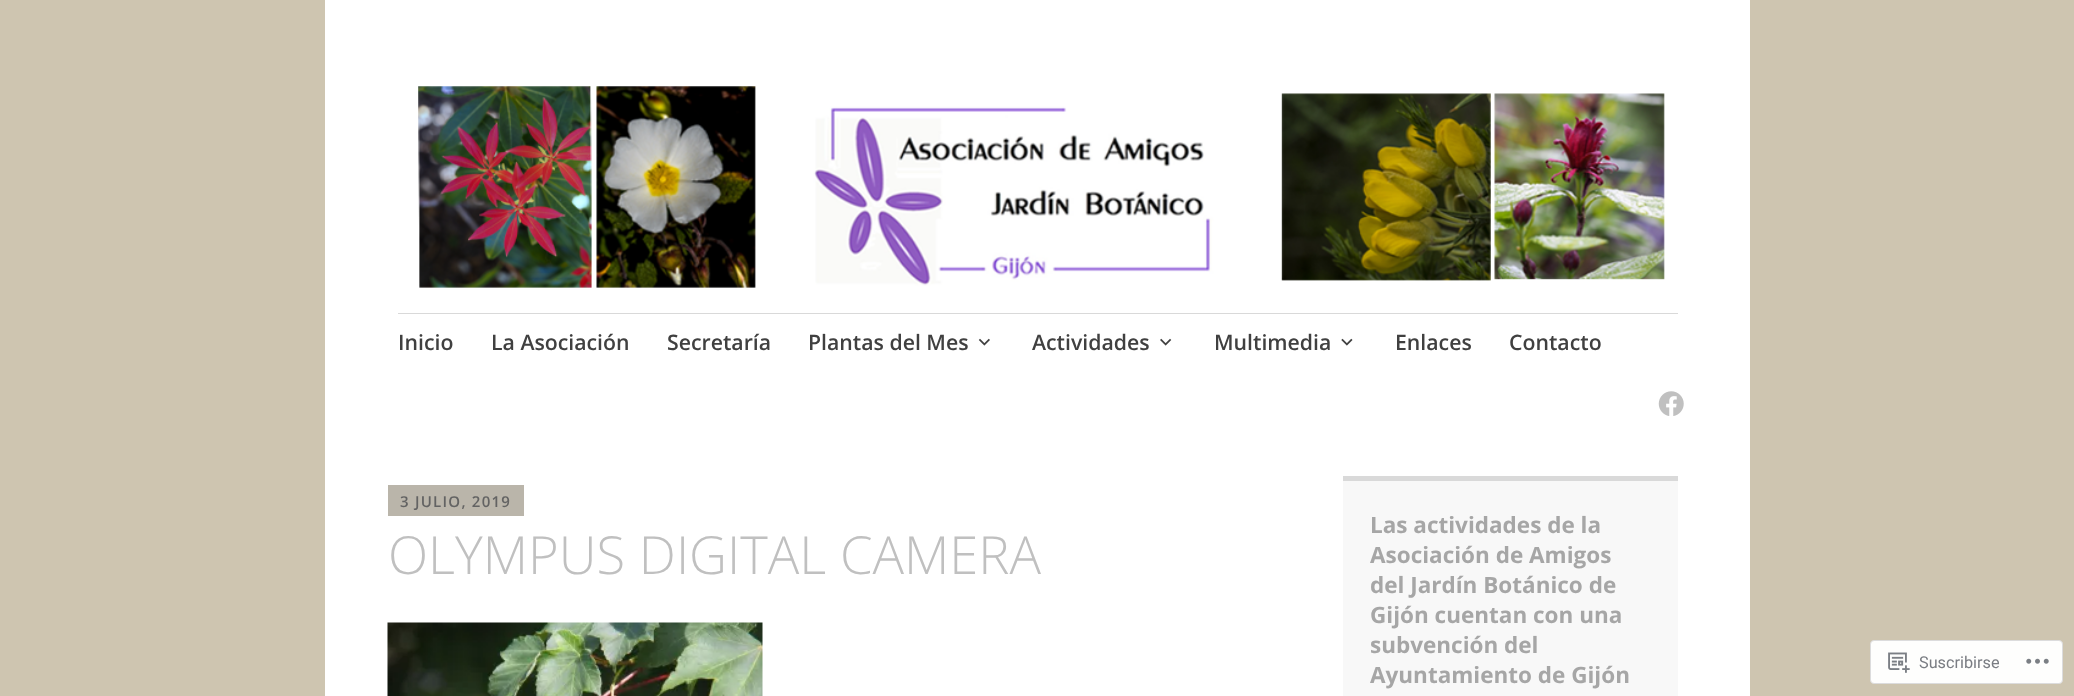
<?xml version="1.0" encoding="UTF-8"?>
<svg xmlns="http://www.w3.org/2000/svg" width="2074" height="696">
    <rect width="100%" height="100%" fill="#CEC5B0"/>
    <rect x="325" y="0" width="1425" height="696" fill="#FFFFFF"/>
    <image x="418" y="86" width="1247" height="202" href="img_01.png"/>
    <rect x="398" y="313" width="1280" height="1" fill="#D9D9D9"/>
    <text x="398" y="350" font-family="Open Sans" font-size="21.25" font-weight="600" fill="#404040">Inicio</text>
    <text x="491" y="350" font-family="Open Sans" font-size="21.25" font-weight="600" fill="#404040">La Asociación</text>
    <text x="667" y="350" font-family="Open Sans" font-size="21.25" font-weight="600" fill="#404040">Secretaría</text>
    <text x="808" y="350" font-family="Open Sans" font-size="21.25" font-weight="600" fill="#404040">Plantas del Mes</text>
    <image x="978" y="338" width="12" height="8" href="img_02.png"/>
    <text x="1032" y="350" font-family="Open Sans" font-size="21.25" font-weight="600" fill="#404040">Actividades</text>
    <image x="1160" y="338" width="12" height="8" href="img_03.png"/>
    <text x="1214" y="350" font-family="Open Sans" font-size="21.25" font-weight="600" fill="#404040">Multimedia</text>
    <image x="1341" y="338" width="12" height="8" href="img_04.png"/>
    <text x="1395" y="350" font-family="Open Sans" font-size="21.25" font-weight="600" fill="#404040">Enlaces</text>
    <text x="1509" y="350" font-family="Open Sans" font-size="21.25" font-weight="600" fill="#404040">Contacto</text>
    <image x="1658" y="391" width="26" height="25" href="img_05.png"/>
    <rect x="388" y="485" width="136" height="31" fill="#BAB5AA"/>
    <text x="400" y="507" font-family="Open Sans" font-size="15" font-weight="600" letter-spacing="1.25" fill="#636363">3 JULIO, 2019</text>
    <text x="388" y="574" font-family="Open Sans" font-size="52.5" font-weight="300" fill="#C0C0C0">OLYMPUS DIGITAL CAMERA</text>
    <image x="387" y="622" width="376" height="74" href="img_06.png"/>
    <rect x="1343" y="481" width="335" height="215" fill="#F8F8F8"/>
    <rect x="1343" y="476" width="335" height="5" fill="#D9D9D9"/>
    <text font-family="Open Sans" font-size="22.5" font-weight="700" fill="#A6A6A6">
        <tspan x="1370" y="533">Las actividades de la</tspan>
        <tspan x="1370" y="563">Asociación de Amigos</tspan>
        <tspan x="1370" y="593">del Jardín Botánico de</tspan>
        <tspan x="1370" y="623">Gijón cuentan con una</tspan>
        <tspan x="1370" y="653">subvención del</tspan>
        <tspan x="1370" y="683">Ayuntamiento de Gijón</tspan>
    </text>
    <rect x="1870.5" y="640.5" width="192" height="43" rx="3.5" fill="#FEFEFD" stroke="#DCDCDD"/>
    <image x="1888" y="652" width="22" height="21" href="img_07.png"/>
    <text x="1919" y="668" font-family="Roboto" font-size="16.25" fill="#7A7D83">Suscribirse</text>
    <image x="2026" y="658" width="23" height="6" href="img_08.png"/>
</svg>
